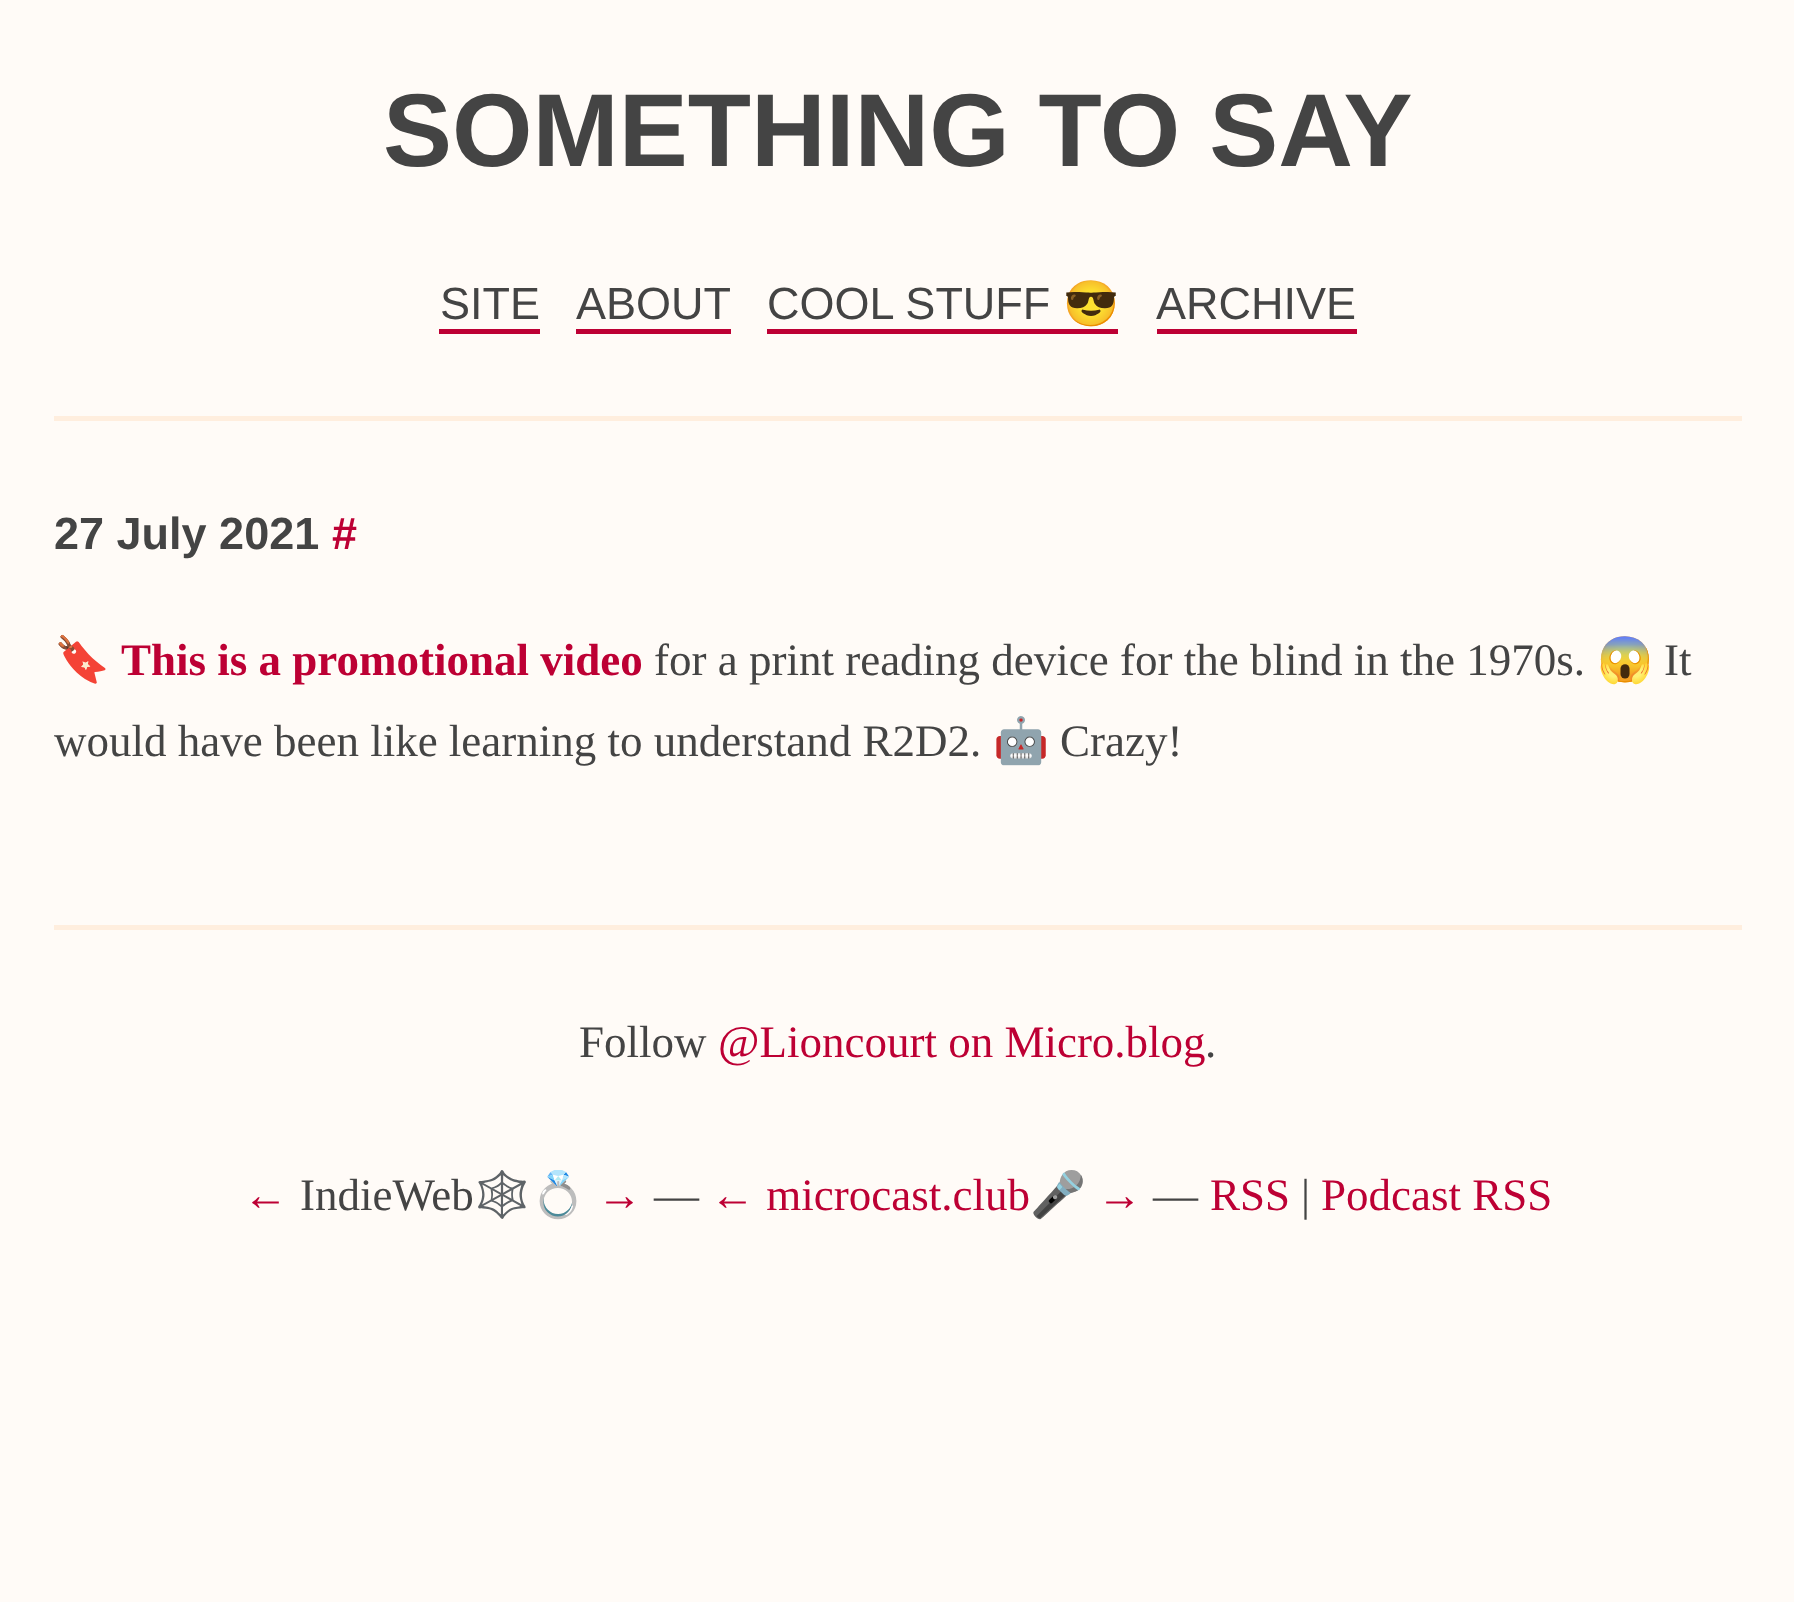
<?xml version="1.0" encoding="UTF-8"?>
<svg xmlns="http://www.w3.org/2000/svg" width="1794" height="1602">
    <rect width="100%" height="100%" fill="#FFFBF7"/>
    <text x="383" y="166" font-family="Liberation Sans" font-size="103.5" font-weight="700" fill="#444444">SOMETHING TO SAY</text>
    <text x="440" y="319" font-family="Liberation Sans" font-size="45" fill="#444444">SITE</text>
    <rect x="439" y="329" width="101" height="5" fill="#BD0034"/>
    <text x="576" y="319" font-family="Liberation Sans" font-size="45" fill="#444444">ABOUT</text>
    <rect x="576" y="329" width="155" height="5" fill="#BD0034"/>
    <text x="767" y="319" font-family="Liberation Sans" font-size="45" fill="#444444">COOL STUFF</text>
    <rect x="767" y="329" width="351" height="5" fill="#BD0034"/>
    <text x="1063" y="319" font-family="Noto Color Emoji" font-size="45" fill="#444444">😎</text>
    <text x="1156" y="319" font-family="Liberation Sans" font-size="45" fill="#444444">ARCHIVE</text>
    <rect x="1157" y="329" width="200" height="5" fill="#BD0034"/>
    <rect x="54" y="416" width="1688" height="5" fill="#FFEEDE"/>
    <text x="54" y="549" font-family="Liberation Sans" font-size="45" font-weight="700" fill="#444444">27 July 2021</text>
    <text x="332" y="549" font-family="Liberation Sans" font-size="45" font-weight="700" fill="#BD0034">#</text>
    <text x="54" y="675" font-family="Noto Color Emoji" font-size="45" fill="#444444">🔖</text>
    <text x="121" y="675" font-family="Liberation Serif" font-size="45" font-weight="700" fill="#BD0034">This is a promotional video</text>
    <text x="654" y="675" font-family="Liberation Serif" font-size="45" fill="#444444">for a print reading device for the blind in the 1970s.</text>
    <text x="1597" y="675" font-family="Noto Color Emoji" font-size="45" fill="#444444">😱</text>
    <text x="1664" y="675" font-family="Liberation Serif" font-size="45" fill="#444444">It</text>
    <text x="54" y="756" font-family="Liberation Serif" font-size="45" fill="#444444">would have been like learning to understand R2D2.</text>
    <text x="993" y="756" font-family="Noto Color Emoji" font-size="45" fill="#444444">🤖</text>
    <text x="1060" y="756" font-family="Liberation Serif" font-size="45" fill="#444444">Crazy!</text>
    <rect x="54" y="925" width="1688" height="5" fill="#FFEEDE"/>
    <text x="579" y="1057" font-family="Liberation Serif" font-size="45" fill="#444444">Follow</text>
    <text x="718" y="1057" font-family="Liberation Serif" font-size="45" fill="#BD0034">@Lioncourt on Micro.blog</text>
    <text x="1205" y="1057" font-family="Liberation Serif" font-size="45" fill="#444444">.</text>
    <text x="243" y="1210" font-family="Liberation Serif" font-size="45" fill="#BD0034">←</text>
    <text x="300" y="1210" font-family="Liberation Serif" font-size="45" fill="#444444">IndieWeb</text>
    <text x="474" y="1210" font-family="Noto Color Emoji" font-size="45" fill="#444444">🕸💍</text>
    <text x="597" y="1210" font-family="Liberation Serif" font-size="45" fill="#BD0034">→</text>
    <text x="654" y="1210" font-family="Liberation Serif" font-size="45" fill="#444444">—</text>
    <text x="710" y="1210" font-family="Liberation Serif" font-size="45" fill="#BD0034">← microcast.club</text>
    <text x="1030" y="1210" font-family="Noto Color Emoji" font-size="45" fill="#BD0034">🎤</text>
    <text x="1097" y="1210" font-family="Liberation Serif" font-size="45" fill="#BD0034">→</text>
    <text x="1153" y="1210" font-family="Liberation Serif" font-size="45" fill="#444444">—</text>
    <text x="1210" y="1210" font-family="Liberation Serif" font-size="45" fill="#BD0034">RSS</text>
    <text x="1301" y="1210" font-family="Liberation Serif" font-size="45" fill="#444444">|</text>
    <text x="1321" y="1210" font-family="Liberation Serif" font-size="45" fill="#BD0034">Podcast RSS</text>
</svg>
